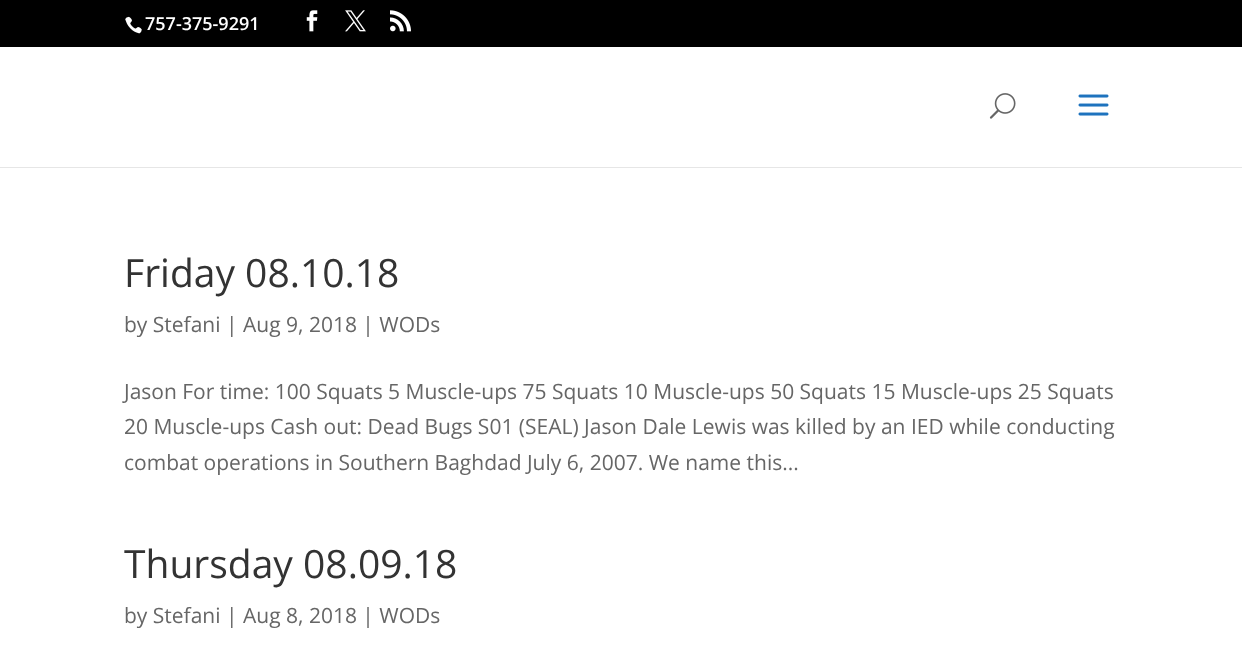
<?xml version="1.0" encoding="UTF-8"?>
<svg xmlns="http://www.w3.org/2000/svg" width="1242" height="650">
    <rect width="100%" height="100%" fill="#FFFFFF"/>
    <rect x="0" y="0" width="1242" height="47" fill="#000000"/>
    <image x="125" y="16" width="17" height="18" href="img_01.png"/>
    <text x="145" y="30" font-family="Open Sans" font-size="18" font-weight="600" fill="#FFFFFF">757-375-9291</text>
    <image x="306" y="10" width="12" height="22" href="img_02.png"/>
    <image x="345" y="10" width="21" height="22" href="img_03.png"/>
    <image x="390" y="10" width="21" height="22" href="img_04.png"/>
    <rect x="0" y="167" width="1242" height="1" fill="#E6E6E6"/>
    <image x="989" y="93" width="27" height="26" href="img_05.png"/>
    <image x="1078" y="94" width="31" height="22" href="img_06.png"/>
    <text x="124" y="287" font-family="Open Sans" font-size="39" fill="#333333">Friday 08.10.18</text>
    <text x="124" y="332" font-family="Open Sans" font-size="21" fill="#666666">by Stefani | Aug 9, 2018 | WODs</text>
    <text font-family="Open Sans" font-size="21" fill="#666666">
        <tspan x="124" y="399">Jason For time: 100 Squats 5 Muscle-ups 75 Squats 10 Muscle-ups 50 Squats 15 Muscle-ups 25 Squats</tspan>
        <tspan x="124" y="434">20 Muscle-ups Cash out: Dead Bugs S01 (SEAL) Jason Dale Lewis was killed by an IED while conducting</tspan>
        <tspan x="124" y="470">combat operations in Southern Baghdad July 6, 2007. We name this...</tspan>
    </text>
    <text x="124" y="578" font-family="Open Sans" font-size="39" fill="#333333">Thursday 08.09.18</text>
    <text x="124" y="623" font-family="Open Sans" font-size="21" fill="#666666">by Stefani | Aug 8, 2018 | WODs</text>
</svg>
